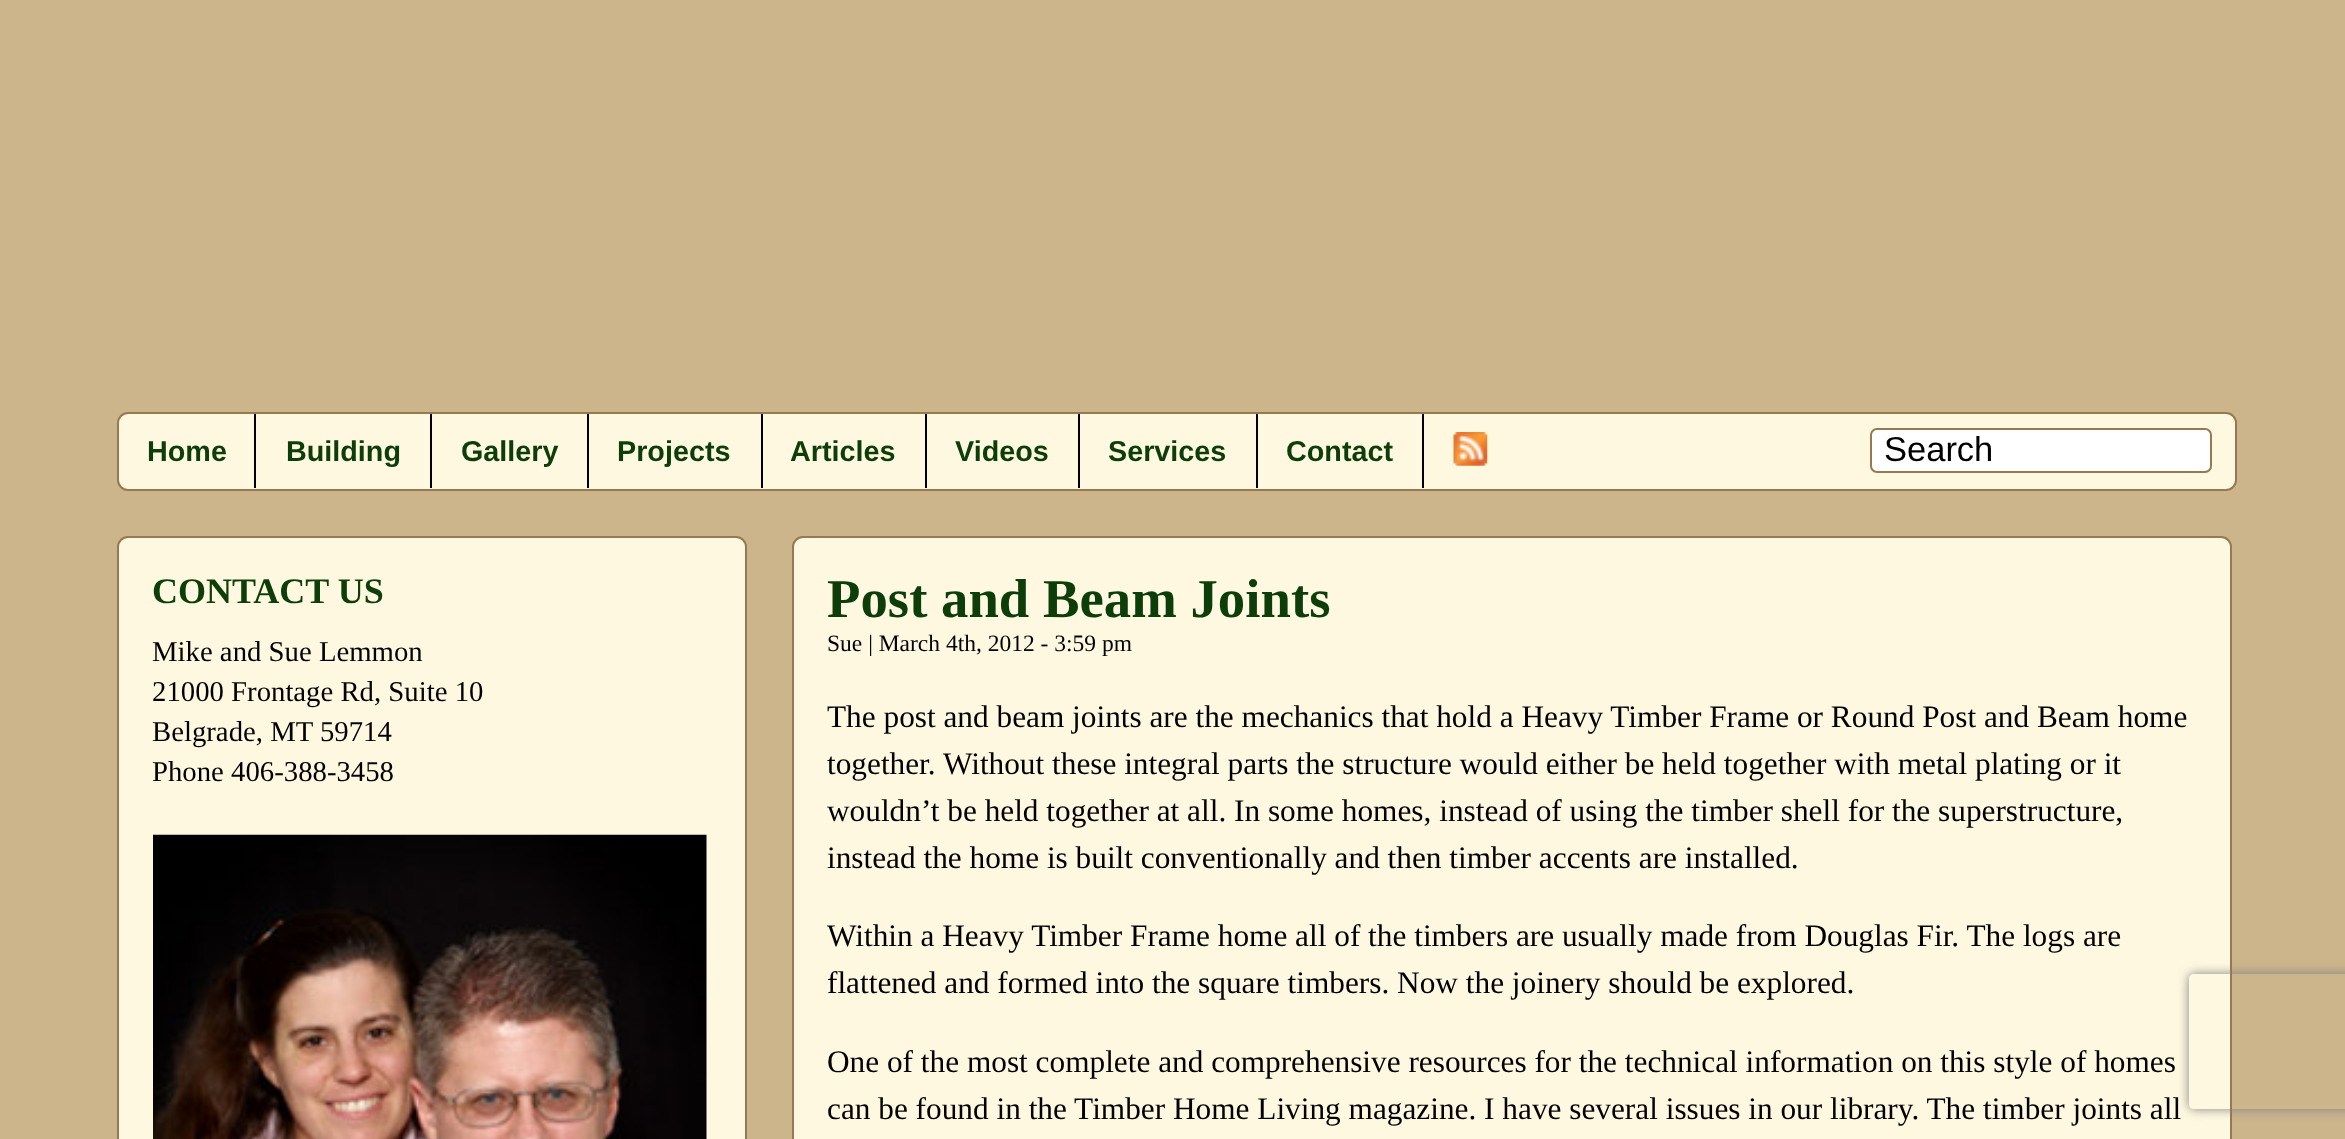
<?xml version="1.0" encoding="UTF-8"?>
<svg xmlns="http://www.w3.org/2000/svg" width="2345" height="1139">
    <defs>
        <clipPath id="clip1"><path d="M 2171 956 H 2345 V 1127 H 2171 Z M 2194 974 H 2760 C 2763 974 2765 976 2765 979 V 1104 C 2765 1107 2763 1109 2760 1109 H 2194 C 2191 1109 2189 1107 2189 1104 V 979 C 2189 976 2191 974 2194 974 Z" clip-rule="evenodd"/></clipPath>
        <filter id="blur1" x="-50%" y="-200%" width="200%" height="500%"><feGaussianBlur stdDeviation="5.5"/></filter>
    </defs>
    <rect width="100%" height="100%" fill="#CCB48B"/>
    <rect x="118" y="413" width="2118" height="77" rx="10" fill="#FFF8E0" stroke="#967851" stroke-width="2"/>
    <text x="147" y="461" font-family="Liberation Sans" font-size="28.75" font-weight="700" fill="#0D3D08">Home</text>
    <rect x="254" y="414" width="2" height="74" fill="#000000"/>
    <text x="286" y="461" font-family="Liberation Sans" font-size="28.75" font-weight="700" fill="#0D3D08">Building</text>
    <rect x="430" y="414" width="2" height="74" fill="#000000"/>
    <text x="461" y="461" font-family="Liberation Sans" font-size="28.75" font-weight="700" fill="#0D3D08">Gallery</text>
    <rect x="587" y="414" width="2" height="74" fill="#000000"/>
    <text x="617" y="461" font-family="Liberation Sans" font-size="28.75" font-weight="700" fill="#0D3D08">Projects</text>
    <rect x="761" y="414" width="2" height="74" fill="#000000"/>
    <text x="790" y="461" font-family="Liberation Sans" font-size="28.75" font-weight="700" fill="#0D3D08">Articles</text>
    <rect x="925" y="414" width="2" height="74" fill="#000000"/>
    <text x="955" y="461" font-family="Liberation Sans" font-size="28.75" font-weight="700" fill="#0D3D08">Videos</text>
    <rect x="1078" y="414" width="2" height="74" fill="#000000"/>
    <text x="1108" y="461" font-family="Liberation Sans" font-size="28.75" font-weight="700" fill="#0D3D08">Services</text>
    <rect x="1256" y="414" width="2" height="74" fill="#000000"/>
    <text x="1286" y="461" font-family="Liberation Sans" font-size="28.75" font-weight="700" fill="#0D3D08">Contact</text>
    <rect x="1422" y="414" width="2" height="74" fill="#000000"/>
    <image x="1453" y="432" width="35" height="34" href="img_01.png"/>
    <rect x="1871" y="429" width="340" height="43" rx="6" fill="#FFFFFF" stroke="#967851" stroke-width="2"/>
    <text x="1884" y="461" font-family="Liberation Sans" font-size="34.5" fill="#000000">Search</text>
    <rect x="118" y="537" width="628" height="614" rx="10" fill="#FFF8E0" stroke="#967851" stroke-width="2"/>
    <text x="152" y="603" font-family="Liberation Serif" font-size="36" font-weight="700" fill="#0D3D08">CONTACT US</text>
    <text font-family="Liberation Serif" font-size="28.75" fill="#000000">
        <tspan x="152" y="661">Mike and Sue Lemmon</tspan>
        <tspan x="152" y="701">21000 Frontage Rd, Suite 10</tspan>
        <tspan x="152" y="741">Belgrade, MT 59714</tspan>
        <tspan x="152" y="781">Phone 406-388-3458</tspan>
    </text>
    <image x="153" y="834" width="554" height="305" href="img_02.png"/>
    <rect x="793" y="537" width="1438" height="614" rx="10" fill="#FFF8E0" stroke="#967851" stroke-width="2"/>
    <text x="827" y="617" font-family="Liberation Serif" font-size="54.75" font-weight="700" fill="#0D3D08">Post and Beam Joints</text>
    <text x="827" y="651" font-family="Liberation Serif" font-size="23.5" fill="#000000">Sue | March 4th, 2012 - 3:59 pm</text>
    <text font-family="Liberation Serif" font-size="31.3" fill="#000000">
        <tspan x="827" y="727">The post and beam joints are the mechanics that hold a Heavy Timber Frame or Round Post and Beam home</tspan>
        <tspan x="827" y="774">together. Without these integral parts the structure would either be held together with metal plating or it</tspan>
        <tspan x="827" y="821">wouldn’t be held together at all. In some homes, instead of using the timber shell for the superstructure,</tspan>
        <tspan x="827" y="868">instead the home is built conventionally and then timber accents are installed.</tspan>
    </text>
    <text font-family="Liberation Serif" font-size="31.3" fill="#000000">
        <tspan x="827" y="946">Within a Heavy Timber Frame home all of the timbers are usually made from Douglas Fir. The logs are</tspan>
        <tspan x="827" y="993">flattened and formed into the square timbers. Now the joinery should be explored.</tspan>
    </text>
    <text font-family="Liberation Serif" font-size="31.3" fill="#000000">
        <tspan x="827" y="1072">One of the most complete and comprehensive resources for the technical information on this style of homes</tspan>
        <tspan x="827" y="1119">can be found in the Timber Home Living magazine. I have several issues in our library. The timber joints all</tspan>
    </text>
    <g clip-path="url(#clip1)">
        <rect x="2189" y="974" width="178" height="135" rx="5" fill="#808080" filter="url(#blur1)"/>
    </g>
</svg>
